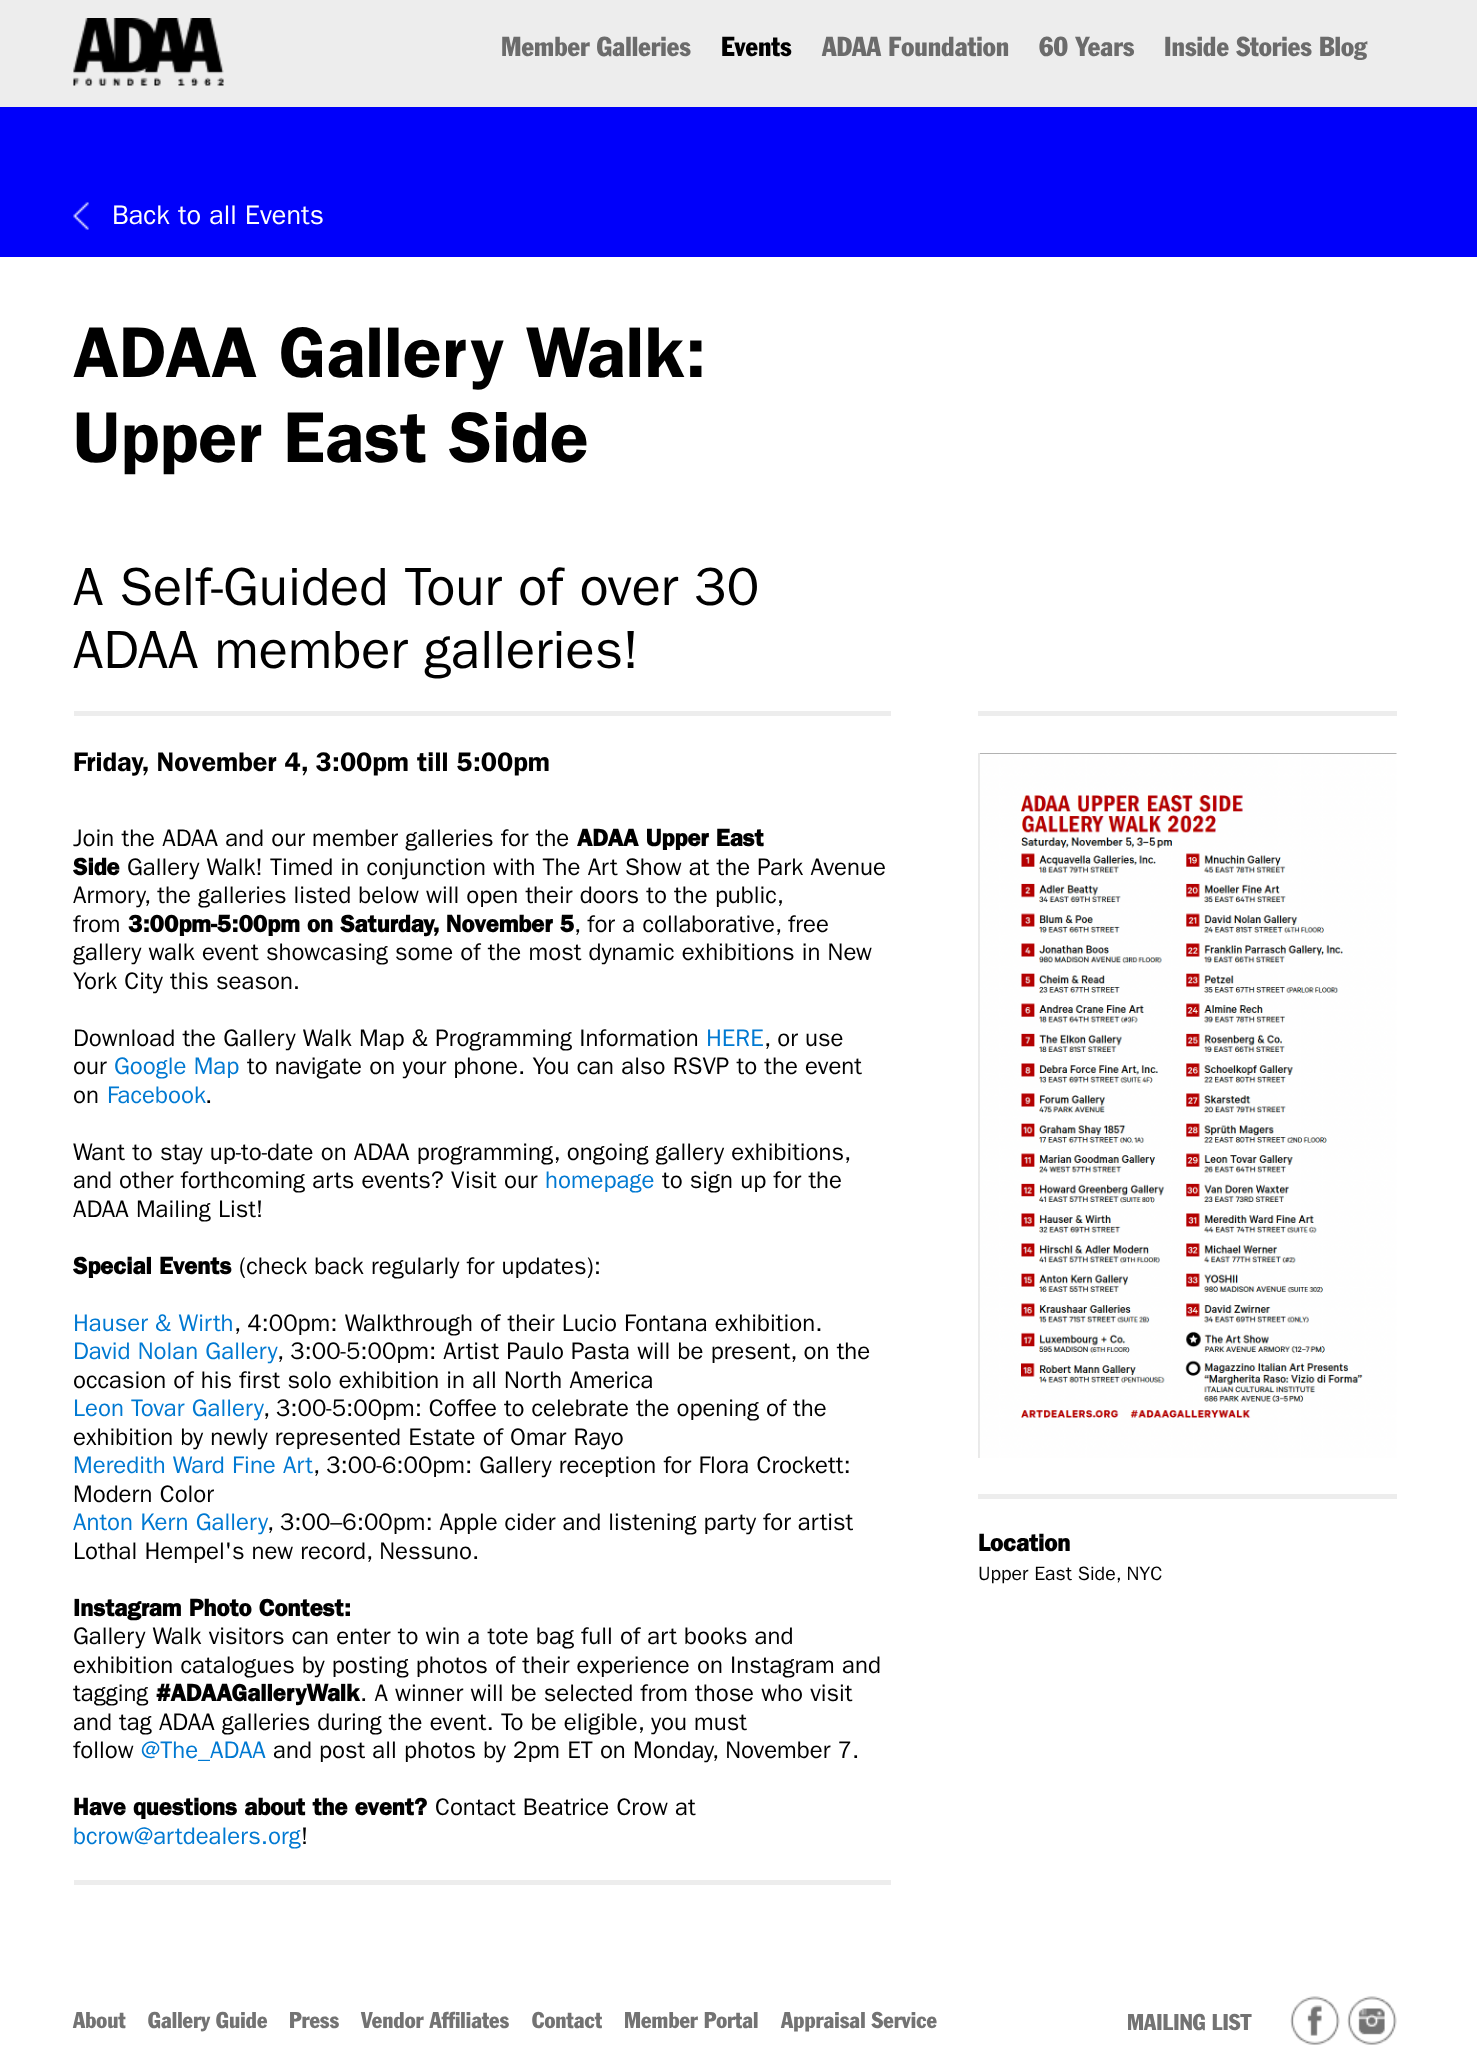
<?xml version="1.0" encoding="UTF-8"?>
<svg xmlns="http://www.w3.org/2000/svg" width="1477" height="2060">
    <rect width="100%" height="100%" fill="#FFFFFF"/>
    <rect x="0" y="0" width="1477" height="107" fill="#EDEDED"/>
    <image x="73" y="18" width="151" height="68" href="img_01.png"/>
    <text x="501" y="56" font-family="'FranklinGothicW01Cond'" font-size="27" fill="#6B6B6B">Member Galleries</text>
    <text x="721" y="56" font-family="'FranklinGothicW01Cond'" font-size="27" fill="#000000">Events</text>
    <text x="822" y="56" font-family="'FranklinGothicW01Cond'" font-size="27" fill="#6B6B6B">ADAA Foundation</text>
    <text x="1039" y="56" font-family="'FranklinGothicW01Cond'" font-size="27" fill="#6B6B6B">60 Years</text>
    <text x="1164" y="56" font-family="'FranklinGothicW01Cond'" font-size="27" fill="#6B6B6B">Inside Stories Blog</text>
    <rect x="0" y="107" width="1477" height="150" fill="#0000FA"/>
    <image x="73" y="202" width="16" height="28" href="img_02.png"/>
    <text x="112" y="224" font-family="'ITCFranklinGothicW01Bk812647'" font-size="27" fill="#FFFFFF">Back to all Events</text>
    <text font-family="'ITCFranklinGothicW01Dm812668'" font-size="72" fill="#000000">
        <tspan x="73" y="377">ADAA Gallery Walk:</tspan>
        <tspan x="73" y="462">Upper East Side</tspan>
    </text>
    <text font-family="'ITCFranklinGothicW01Bk812647'" font-size="54" fill="#000000">
        <tspan x="73" y="605">A Self-Guided Tour of over 30</tspan>
        <tspan x="73" y="668">ADAA member galleries!</tspan>
    </text>
    <rect x="74" y="711" width="817" height="5" fill="#EDEDED"/>
    <text x="73" y="771" font-family="'ITCFranklinGothicW01Dm812668'" font-size="27" fill="#000000">Friday, November 4, 3:00pm till 5:00pm</text>
    <text x="73" y="846" font-family="'ITCFranklinGothicW01Bk812647'" font-size="24" fill="#000000">Join the ADAA and our member galleries for the</text>
    <text x="577" y="846" font-family="'ITCFranklinGothicW01Dm812668'" font-size="24" font-weight="700" fill="#000000">ADAA Upper East</text>
    <text x="73" y="875" font-family="'ITCFranklinGothicW01Dm812668'" font-size="24" font-weight="700" fill="#000000">Side</text>
    <text x="127" y="875" font-family="'ITCFranklinGothicW01Bk812647'" font-size="24" fill="#000000">Gallery Walk! Timed in conjunction with The Art Show at the Park Avenue</text>
    <text font-family="'ITCFranklinGothicW01Bk812647'" font-size="24" fill="#000000">
        <tspan x="73" y="903">Armory, the galleries listed below will open their doors to the public,</tspan>
        <tspan x="73" y="932">from</tspan>
    </text>
    <text x="128" y="932" font-family="'ITCFranklinGothicW01Dm812668'" font-size="24" font-weight="700" fill="#000000">3:00pm-5:00pm on Saturday, November 5</text>
    <text x="574" y="932" font-family="'ITCFranklinGothicW01Bk812647'" font-size="24" fill="#000000">, for a collaborative, free</text>
    <text font-family="'ITCFranklinGothicW01Bk812647'" font-size="24" fill="#000000">
        <tspan x="73" y="960">gallery walk event showcasing some of the most dynamic exhibitions in New</tspan>
        <tspan x="73" y="989">York City this season.</tspan>
    </text>
    <text x="73" y="1046" font-family="'ITCFranklinGothicW01Bk812647'" font-size="24" fill="#000000">Download the Gallery Walk Map &amp; Programming Information</text>
    <text x="706" y="1046" font-family="'ITCFranklinGothicW01Bk812647'" font-size="24" fill="#0079D2">HERE</text>
    <text x="764" y="1046" font-family="'ITCFranklinGothicW01Bk812647'" font-size="24" fill="#000000">, or use</text>
    <text x="73" y="1074" font-family="'ITCFranklinGothicW01Bk812647'" font-size="24" fill="#000000">our</text>
    <text x="114" y="1074" font-family="'ITCFranklinGothicW01Bk812647'" font-size="24" fill="#0079D2">Google Map</text>
    <text x="247" y="1074" font-family="'ITCFranklinGothicW01Bk812647'" font-size="24" fill="#000000">to navigate on your phone. You can also RSVP to the event</text>
    <text x="73" y="1103" font-family="'ITCFranklinGothicW01Bk812647'" font-size="24" fill="#000000">on</text>
    <text x="107" y="1103" font-family="'ITCFranklinGothicW01Bk812647'" font-size="24" fill="#0079D2">Facebook</text>
    <text x="205" y="1103" font-family="'ITCFranklinGothicW01Bk812647'" font-size="24" fill="#000000">.</text>
    <text font-family="'ITCFranklinGothicW01Bk812647'" font-size="24" fill="#000000">
        <tspan x="73" y="1160">Want to stay up-to-date on ADAA programming, ongoing gallery exhibitions,</tspan>
        <tspan x="73" y="1188">and other forthcoming arts events? Visit our</tspan>
    </text>
    <text x="545" y="1188" font-family="'ITCFranklinGothicW01Bk812647'" font-size="24" fill="#0079D2">homepage</text>
    <text x="662" y="1188" font-family="'ITCFranklinGothicW01Bk812647'" font-size="24" fill="#000000">to sign up for the</text>
    <text x="73" y="1217" font-family="'ITCFranklinGothicW01Bk812647'" font-size="24" fill="#000000">ADAA Mailing List!</text>
    <text x="73" y="1274" font-family="'ITCFranklinGothicW01Dm812668'" font-size="24" font-weight="700" fill="#000000">Special Events</text>
    <text x="239" y="1274" font-family="'ITCFranklinGothicW01Bk812647'" font-size="24" fill="#000000">(check back regularly for updates):</text>
    <text x="73" y="1331" font-family="'ITCFranklinGothicW01Bk812647'" font-size="24" fill="#0079D2">Hauser &amp; Wirth</text>
    <text x="234" y="1331" font-family="'ITCFranklinGothicW01Bk812647'" font-size="24" fill="#000000">, 4:00pm: Walkthrough of their Lucio Fontana exhibition.</text>
    <text x="73" y="1359" font-family="'ITCFranklinGothicW01Bk812647'" font-size="24" fill="#0079D2">David Nolan Gallery</text>
    <text x="277" y="1359" font-family="'ITCFranklinGothicW01Bk812647'" font-size="24" fill="#000000">, 3:00-5:00pm: Artist Paulo Pasta will be present, on the</text>
    <text x="73" y="1388" font-family="'ITCFranklinGothicW01Bk812647'" font-size="24" fill="#000000">occasion of his first solo exhibition in all North America</text>
    <text x="73" y="1416" font-family="'ITCFranklinGothicW01Bk812647'" font-size="24" fill="#0079D2">Leon Tovar Gallery</text>
    <text x="263" y="1416" word-spacing="-0.25" font-family="'ITCFranklinGothicW01Bk812647'" font-size="24" fill="#000000">, 3:00-5:00pm: Coffee to celebrate the opening of the</text>
    <text x="73" y="1445" font-family="'ITCFranklinGothicW01Bk812647'" font-size="24" fill="#000000">exhibition by newly represented Estate of Omar Rayo</text>
    <text x="73" y="1473" font-family="'ITCFranklinGothicW01Bk812647'" font-size="24" fill="#0079D2">Meredith Ward Fine Art</text>
    <text x="313" y="1473" font-family="'ITCFranklinGothicW01Bk812647'" font-size="24" fill="#000000">, 3:00-6:00pm: Gallery reception for Flora Crockett:</text>
    <text x="73" y="1502" font-family="'ITCFranklinGothicW01Bk812647'" font-size="24" fill="#000000">Modern Color</text>
    <text x="73" y="1530" font-family="'ITCFranklinGothicW01Bk812647'" font-size="24" fill="#0079D2">Anton Kern Gallery</text>
    <text x="267" y="1530" word-spacing="-0.25" font-family="'ITCFranklinGothicW01Bk812647'" font-size="24" fill="#000000">, 3:00–6:00pm: Apple cider and listening party for artist</text>
    <text x="73" y="1559" font-family="'ITCFranklinGothicW01Bk812647'" font-size="24" fill="#000000">Lothal Hempel's new record, Nessuno.</text>
    <text x="73" y="1616" font-family="'ITCFranklinGothicW01Dm812668'" font-size="24" font-weight="700" fill="#000000">Instagram Photo Contest:</text>
    <text font-family="'ITCFranklinGothicW01Bk812647'" font-size="24" fill="#000000">
        <tspan x="73" y="1644">Gallery Walk visitors can enter to win a tote bag full of art books and</tspan>
        <tspan x="73" y="1673">exhibition catalogues by posting photos of their experience on Instagram and</tspan>
        <tspan x="73" y="1701">tagging</tspan>
    </text>
    <text x="156" y="1701" font-family="'ITCFranklinGothicW01Dm812668'" font-size="24" font-weight="700" fill="#000000">#ADAAGalleryWalk</text>
    <text x="360" y="1701" font-family="'ITCFranklinGothicW01Bk812647'" font-size="24" fill="#000000">. A winner will be selected from those who visit</text>
    <text font-family="'ITCFranklinGothicW01Bk812647'" font-size="24" fill="#000000">
        <tspan x="73" y="1730">and tag ADAA galleries during the event. To be eligible, you must</tspan>
        <tspan x="73" y="1758">follow</tspan>
    </text>
    <text x="141" y="1758" font-family="'ITCFranklinGothicW01Bk812647'" font-size="24" fill="#0079D2">@The_ADAA</text>
    <text x="273" y="1758" font-family="'ITCFranklinGothicW01Bk812647'" font-size="24" fill="#000000">and post all photos by 2pm ET on Monday, November 7.</text>
    <text x="73" y="1815" font-family="'ITCFranklinGothicW01Dm812668'" font-size="24" font-weight="700" fill="#000000">Have questions about the event?</text>
    <text x="435" y="1815" font-family="'ITCFranklinGothicW01Bk812647'" font-size="24" fill="#000000">Contact Beatrice Crow at</text>
    <text x="73" y="1844" font-family="'ITCFranklinGothicW01Bk812647'" font-size="24" fill="#0079D2">bcrow@artdealers.org</text>
    <text x="301" y="1844" font-family="'ITCFranklinGothicW01Bk812647'" font-size="24" fill="#000000">!</text>
    <rect x="74" y="1880" width="817" height="5" fill="#EDEDED"/>
    <rect x="978" y="711" width="419" height="5" fill="#EDEDED"/>
    <image x="978" y="753" width="419" height="705" href="img_03.png"/>
    <rect x="978" y="1494" width="419" height="5" fill="#EDEDED"/>
    <text x="978" y="1551" font-family="'ITCFranklinGothicW01Dm812668'" font-size="24" font-weight="700" fill="#000000">Location</text>
    <text x="978" y="1580" font-family="'ITCFranklinGothicW01Bk812647'" font-size="19.5" fill="#000000">Upper East Side, NYC</text>
    <text x="73" y="2028" font-family="'FranklinGothicW01Cond'" font-size="22.5" fill="#737373">About</text>
    <text x="148" y="2028" font-family="'FranklinGothicW01Cond'" font-size="22.5" fill="#737373">Gallery Guide</text>
    <text x="289" y="2028" font-family="'FranklinGothicW01Cond'" font-size="22.5" fill="#737373">Press</text>
    <text x="361" y="2028" font-family="'FranklinGothicW01Cond'" font-size="22.5" fill="#737373">Vendor Affiliates</text>
    <text x="532" y="2028" font-family="'FranklinGothicW01Cond'" font-size="22.5" fill="#737373">Contact</text>
    <text x="624" y="2028" font-family="'FranklinGothicW01Cond'" font-size="22.5" fill="#737373">Member Portal</text>
    <text x="781" y="2028" font-family="'FranklinGothicW01Cond'" font-size="22.5" fill="#737373">Appraisal Service</text>
    <text x="1127" y="2030" font-family="'FranklinGothicW01Cond'" font-size="22.5" fill="#737373">MAILING LIST</text>
    <image x="1290" y="1996" width="50" height="49" href="img_04.png"/>
    <image x="1347" y="1996" width="50" height="49" href="img_05.png"/>
</svg>
